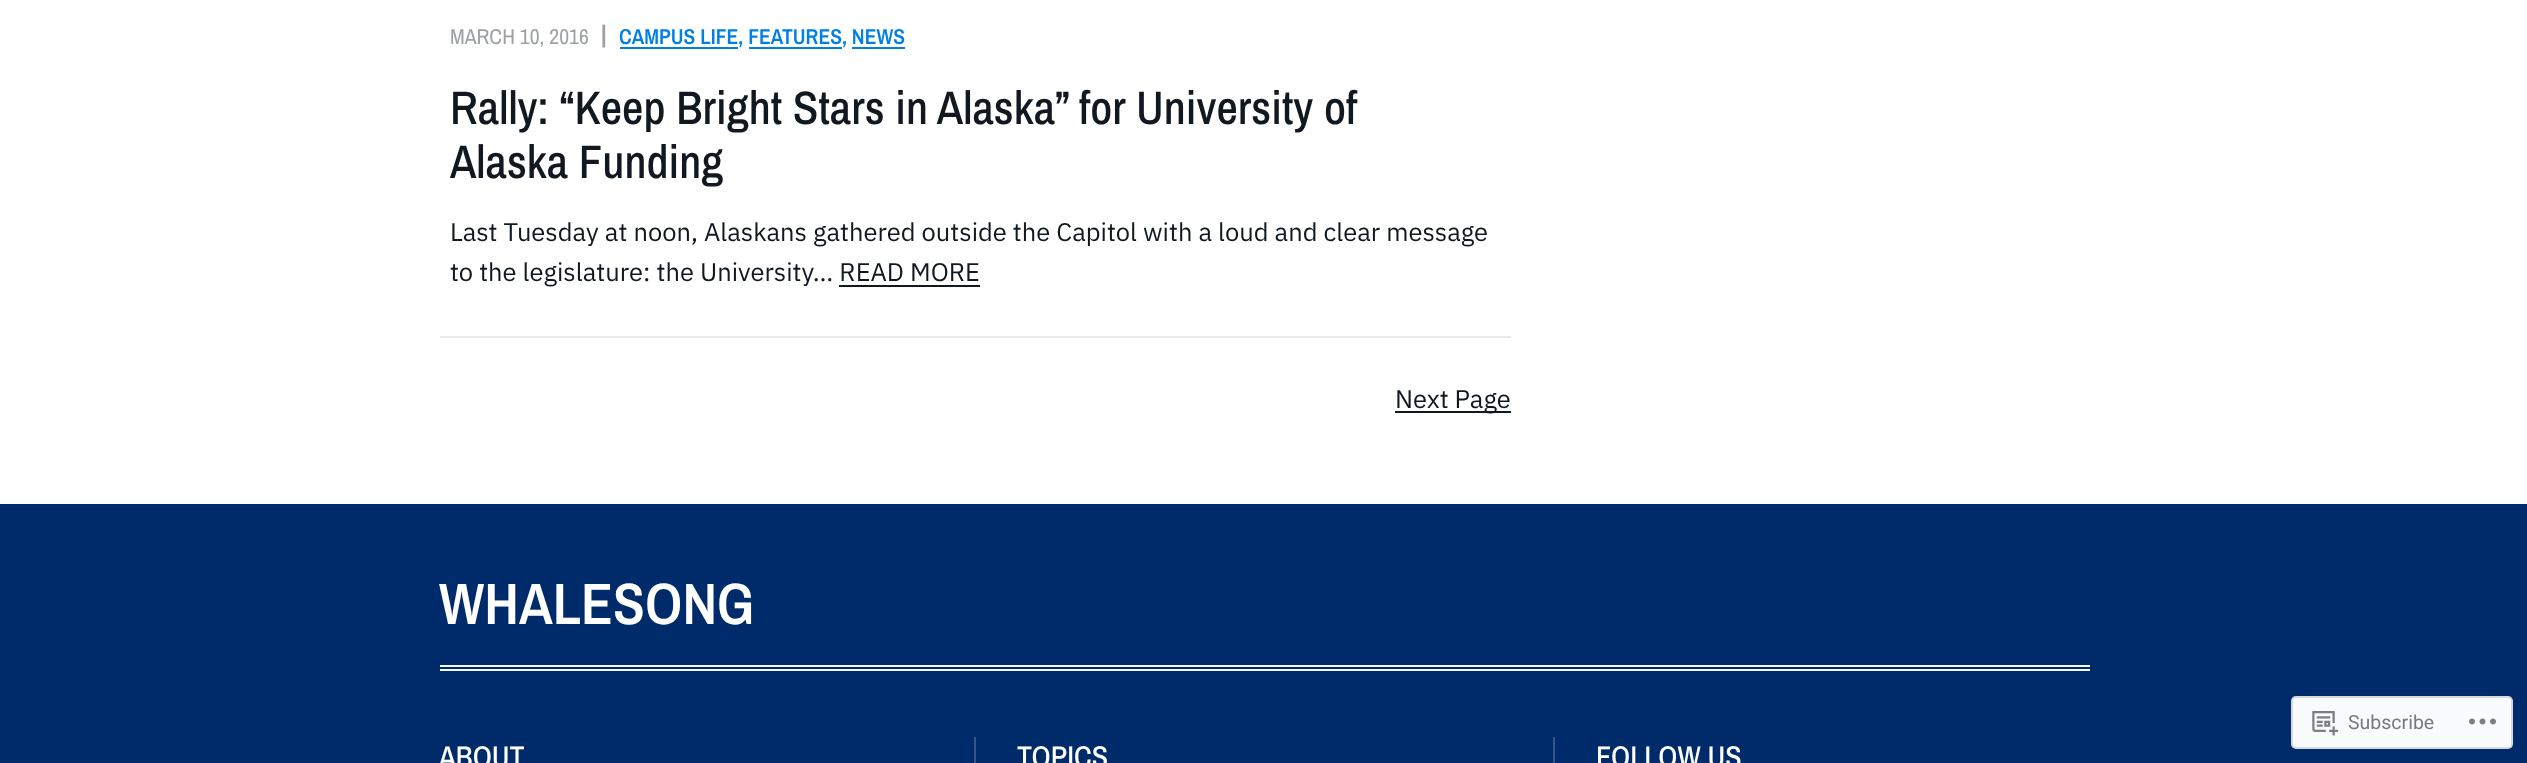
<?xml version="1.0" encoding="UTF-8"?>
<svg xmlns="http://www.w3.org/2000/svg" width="2527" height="763">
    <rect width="100%" height="100%" fill="#FFFFFF"/>
    <rect x="440" y="336" width="1071" height="2" fill="#E8EBEE"/>
    <text x="450" y="44" font-family="Archivo Narrow" font-size="21.6" fill="#9DA1A5">MARCH 10, 2016</text>
    <text x="599" y="44" font-family="IBM Plex Sans" font-size="25.5" font-weight="600" fill="#9DA1A5">|</text>
    <rect x="620" y="47" width="118" height="2" fill="#007FE6"/>
    <text x="619" y="44" font-family="Archivo Narrow" font-size="21.6" font-weight="600" fill="#007FE6">CAMPUS LIFE, FEATURES, NEWS</text>
    <rect x="749" y="47" width="93" height="2" fill="#007FE6"/>
    <rect x="852" y="47" width="53" height="2" fill="#007FE6"/>
    <text x="450" y="124" font-family="Archivo Narrow" font-size="46.9" font-weight="500" fill="#11181F">Rally: “Keep Bright Stars in Alaska” for</text>
    <text x="1136" y="124" font-family="Archivo Narrow" font-size="46.9" font-weight="500" fill="#11181F">University of</text>
    <text x="450" y="178" font-family="Archivo Narrow" font-size="46.9" font-weight="500" fill="#11181F">Alaska Funding</text>
    <text font-family="IBM Plex Sans" font-size="25.5" fill="#11181F">
        <tspan x="450" y="241">Last Tuesday at noon, Alaskans gathered outside the Capitol with a loud and clear message</tspan>
        <tspan x="450" y="281">to the legislature: the University… READ MORE</tspan>
    </text>
    <rect x="839" y="285" width="141" height="2" fill="#11181F"/>
    <rect x="1395" y="411" width="116" height="2" fill="#11181F"/>
    <text x="1395" y="408" font-family="IBM Plex Sans" font-size="25.5" fill="#11181F">Next Page</text>
    <rect x="0" y="504" width="2527" height="259" fill="#002B6A"/>
    <text x="439" y="624" font-family="Archivo Narrow" font-size="58.5" font-weight="600" fill="#FFFFFF">WHALESONG</text>
    <rect x="440" y="665" width="1650" height="2" fill="#F7F6F1"/>
    <rect x="440" y="669" width="1650" height="2" fill="#F7F6F1"/>
    <rect x="974" y="737" width="2" height="26" fill="#335588"/>
    <text x="439" y="767" font-family="Archivo Narrow" font-size="30" font-weight="500" fill="#FFFFFF">ABOUT</text>
    <rect x="1553" y="737" width="2" height="26" fill="#335588"/>
    <text x="1017" y="767" font-family="Archivo Narrow" font-size="30" font-weight="500" fill="#FFFFFF">TOPICS</text>
    <text x="1596" y="767" font-family="Archivo Narrow" font-size="30" font-weight="500" fill="#FFFFFF">FOLLOW US</text>
    <rect x="2292" y="697" width="220" height="51" rx="4" fill="#FAFBFC" stroke="#D8D8DC" stroke-width="2"/>
    <image x="2312" y="711" width="27" height="25" href="img_01.png"/>
    <text x="2348" y="729" font-family="Roboto" font-size="19.5" fill="#767A82">Subscribe</text>
    <image x="2469" y="718" width="27" height="7" href="img_02.png"/>
</svg>
